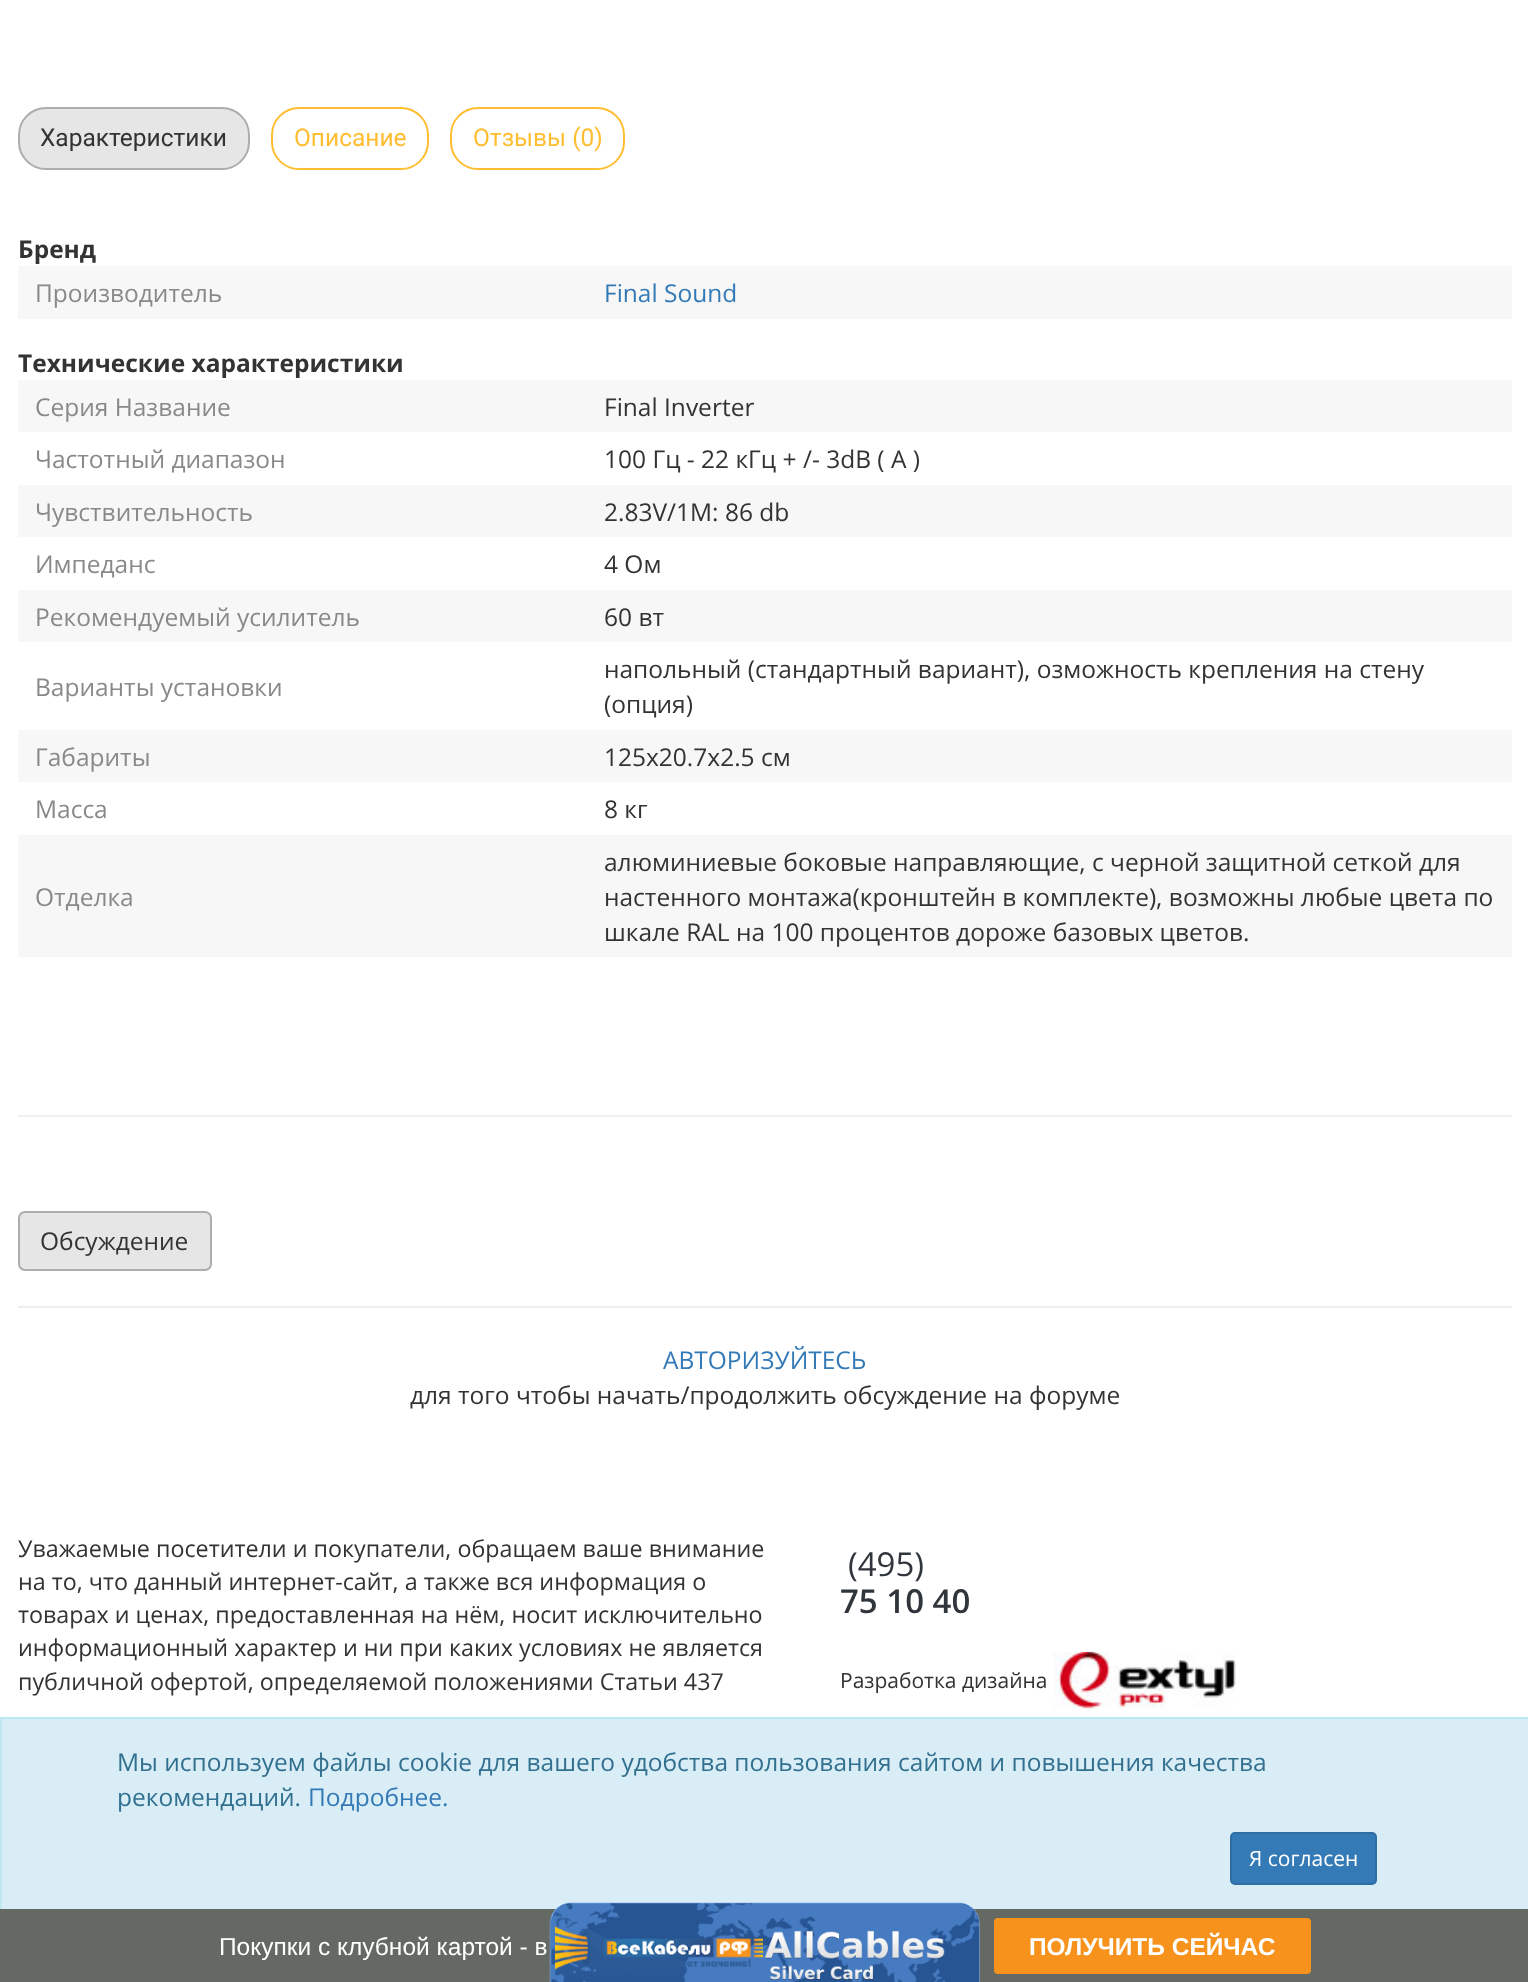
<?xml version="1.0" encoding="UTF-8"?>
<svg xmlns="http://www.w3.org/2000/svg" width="1528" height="1982">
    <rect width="100%" height="100%" fill="#FFFFFF"/>
    <rect x="19" y="108" width="230" height="61" rx="27" fill="#E6E6E6" stroke="#ADADAD" stroke-width="2"/>
    <text x="40" y="146" font-family="Roboto" font-size="24.5" fill="#333333">Характеристики</text>
    <rect x="272" y="108" width="156" height="61" rx="27" fill="none" stroke="#FFBE32" stroke-width="2"/>
    <text x="294" y="146" font-family="Roboto" font-size="24.5" fill="#FFBE32">Описание</text>
    <rect x="451" y="108" width="173" height="61" rx="27" fill="none" stroke="#FFBE32" stroke-width="2"/>
    <text x="473" y="146" font-family="Roboto" font-size="24.5" fill="#FFBE32">Отзывы (0)</text>
    <rect x="18" y="1115" width="1494" height="2" fill="#EFF0F0"/>
    <text x="18" y="258" font-family="Open Sans" font-size="24.5" font-weight="700" fill="#333333">Бренд</text>
    <rect x="18" y="266" width="1494" height="53" fill="#F7F7F7"/>
    <text x="35" y="302" font-family="Open Sans" font-size="24.5" fill="#898989">Производитель</text>
    <text x="604" y="302" font-family="Open Sans" font-size="24.5" fill="#337AB7">Final Sound</text>
    <text x="18" y="372" font-family="Open Sans" font-size="24.5" font-weight="700" fill="#333333">Технические характеристики</text>
    <rect x="18" y="380" width="1494" height="52" fill="#F7F7F7"/>
    <text x="35" y="416" font-family="Open Sans" font-size="24.5" fill="#898989">Серия Название</text>
    <text x="604" y="416" font-family="Open Sans" font-size="24.5" fill="#333333">Final Inverter</text>
    <text x="35" y="468" font-family="Open Sans" font-size="24.5" fill="#898989">Частотный диапазон</text>
    <text x="604" y="468" font-family="Open Sans" font-size="24.5" fill="#333333">100 Гц - 22 кГц + /- 3dB ( A )</text>
    <rect x="18" y="485" width="1494" height="52" fill="#F7F7F7"/>
    <text x="35" y="521" font-family="Open Sans" font-size="24.5" fill="#898989">Чувствительность</text>
    <text x="604" y="521" font-family="Open Sans" font-size="24.5" fill="#333333">2.83V/1M: 86 db</text>
    <text x="35" y="573" font-family="Open Sans" font-size="24.5" fill="#898989">Импеданс</text>
    <text x="604" y="573" font-family="Open Sans" font-size="24.5" fill="#333333">4 Ом</text>
    <rect x="18" y="590" width="1494" height="52" fill="#F7F7F7"/>
    <text x="35" y="626" font-family="Open Sans" font-size="24.5" fill="#898989">Рекомендуемый усилитель</text>
    <text x="604" y="626" font-family="Open Sans" font-size="24.5" fill="#333333">60 вт</text>
    <text x="35" y="696" font-family="Open Sans" font-size="24.5" fill="#898989">Варианты установки</text>
    <text font-family="Open Sans" font-size="24.5" fill="#333333">
        <tspan x="604" y="678">напольный (стандартный вариант), озможность крепления на стену</tspan>
        <tspan x="604" y="713">(опция)</tspan>
    </text>
    <rect x="18" y="730" width="1494" height="52" fill="#F7F7F7"/>
    <text x="35" y="766" font-family="Open Sans" font-size="24.5" fill="#898989">Габариты</text>
    <text x="604" y="766" font-family="Open Sans" font-size="24.5" fill="#333333">125х20.7х2.5 см</text>
    <text x="35" y="818" font-family="Open Sans" font-size="24.5" fill="#898989">Масса</text>
    <text x="604" y="818" font-family="Open Sans" font-size="24.5" fill="#333333">8 кг</text>
    <rect x="18" y="835" width="1494" height="122" fill="#F7F7F7"/>
    <text x="35" y="906" font-family="Open Sans" font-size="24.5" fill="#898989">Отделка</text>
    <text font-family="Open Sans" font-size="24.5" fill="#333333">
        <tspan x="604" y="871">алюминиевые боковые направляющие, с черной защитной сеткой для</tspan>
        <tspan x="604" y="906">настенного монтажа(кронштейн в комплекте), возможны любые цвета по</tspan>
        <tspan x="604" y="941">шкале RAL на 100 процентов дороже базовых цветов.</tspan>
    </text>
    <rect x="19" y="1212" width="192" height="58" rx="6" fill="#E6E6E6" stroke="#ADADAD" stroke-width="2"/>
    <text x="40" y="1250" font-family="Open Sans" font-size="24.5" fill="#333333">Обсуждение</text>
    <rect x="18" y="1306" width="1494" height="2" fill="#EEEEEE"/>
    <text x="663" y="1369" font-family="Open Sans" font-size="24.5" fill="#337AB7">АВТОРИЗУЙТЕСЬ</text>
    <text x="410" y="1404" font-family="Open Sans" font-size="24.5" fill="#333333">для того чтобы начать/продолжить обсуждение на форуме</text>
    <text font-family="Open Sans" font-size="23.3" fill="#333333">
        <tspan x="18" y="1557">Уважаемые посетители и покупатели, обращаем ваше внимание</tspan>
        <tspan x="18" y="1590">на то, что данный интернет-сайт, а также вся информация о</tspan>
        <tspan x="18" y="1623">товарах и ценах, предоставленная на нём, носит исключительно</tspan>
        <tspan x="18" y="1656">информационный характер и ни при каких условиях не является</tspan>
        <tspan x="18" y="1690">публичной офертой, определяемой положениями Статьи 437</tspan>
    </text>
    <text x="848" y="1576" font-family="Open Sans" font-size="33" fill="#30363C">(495)</text>
    <text x="840" y="1613" font-family="Open Sans" font-size="33" font-weight="600" fill="#30363C">75 10 40</text>
    <text x="840" y="1688" font-family="Open Sans" font-size="21" fill="#333333">Разработка дизайна</text>
    <image x="1053" y="1651" width="183" height="58" href="img_01.png"/>
    <rect x="2" y="1719" width="1526" height="190" fill="#D9EDF7"/>
    <rect x="1" y="1718" width="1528" height="194" fill="none" stroke="#BCE8F1" stroke-width="2"/>
    <text font-family="Open Sans" font-size="24.5" fill="#31708F">
        <tspan x="117" y="1771">Мы используем файлы cookie для вашего удобства пользования сайтом и повышения качества</tspan>
        <tspan x="117" y="1806">рекомендаций.</tspan>
    </text>
    <text x="308" y="1806" font-family="Open Sans" font-size="24.5" fill="#337AB7">Подробнее.</text>
    <rect x="1231" y="1833" width="145" height="51" rx="4" fill="#337AB7" stroke="#2E6DA4" stroke-width="2"/>
    <text x="1249" y="1866" font-family="Open Sans" font-size="21" fill="#FFFFFF">Я согласен</text>
    <rect x="0" y="1909" width="1528" height="73" fill="#646963"/>
    <text x="219" y="1955" font-family="Liberation Sans" font-size="24.5" fill="#FFFFFF">Покупки с клубной картой - в</text>
    <image x="549" y="1902" width="431" height="80" href="img_02.png"/>
    <rect x="994" y="1918" width="317" height="56" rx="4" fill="#F7931D"/>
    <text x="1029" y="1955" font-family="Liberation Sans" font-size="24.5" font-weight="700" fill="#FFFFFF">ПОЛУЧИТЬ СЕЙЧАС</text>
</svg>
